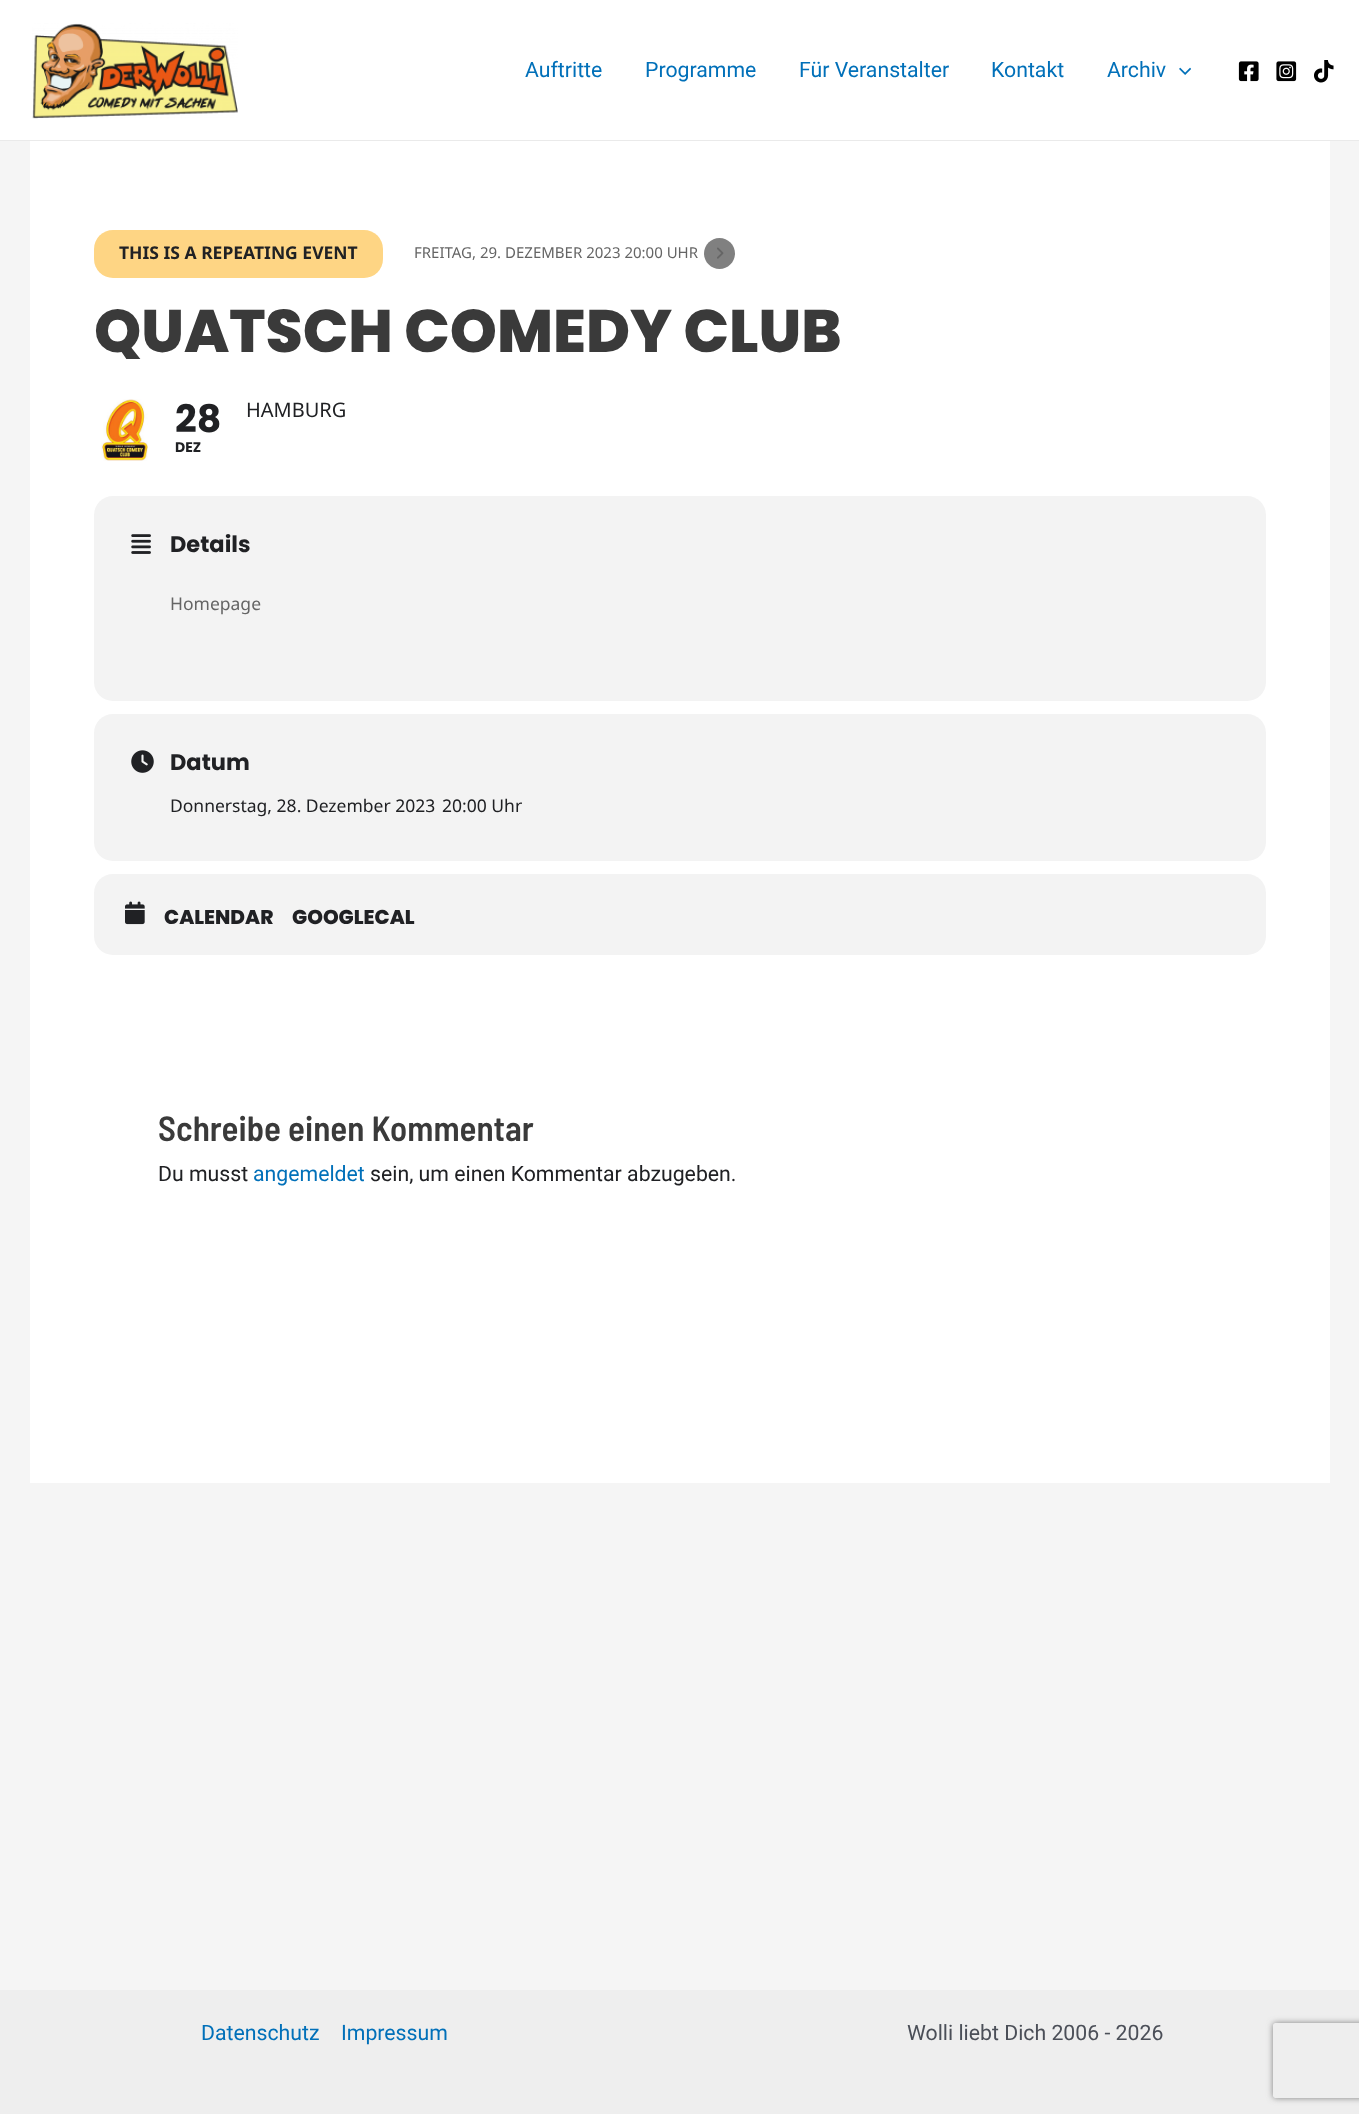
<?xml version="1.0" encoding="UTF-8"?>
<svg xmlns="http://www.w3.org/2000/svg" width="1359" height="2114">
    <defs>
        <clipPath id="clip1"><path d="M 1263 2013 H 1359 V 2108 H 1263 Z M 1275.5 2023 H 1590.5 C 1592 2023 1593 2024 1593 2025.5 V 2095.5 C 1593 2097 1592 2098 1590.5 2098 H 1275.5 C 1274 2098 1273 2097 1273 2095.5 V 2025.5 C 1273 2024 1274 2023 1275.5 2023 Z" clip-rule="evenodd"/></clipPath>
        <filter id="blur1" x="-50%" y="-200%" width="200%" height="500%"><feGaussianBlur stdDeviation="3"/></filter>
    </defs>
    <rect width="100%" height="100%" fill="#F5F5F5"/>
    <rect x="0" y="0" width="1359" height="140" fill="#FFFFFF"/>
    <rect x="0" y="140" width="1359" height="1" fill="#EAEAEA"/>
    <image x="32" y="23" width="206" height="96" href="img_01.png"/>
    <text x="525" y="77" font-family="Roboto" font-size="21.25" fill="#0170B9">Auftritte</text>
    <text x="645" y="77" font-family="Roboto" font-size="21.25" fill="#0170B9">Programme</text>
    <text x="799" y="77" font-family="Roboto" font-size="21.25" fill="#0170B9">Für Veranstalter</text>
    <text x="991" y="77" font-family="Roboto" font-size="21.25" fill="#0170B9">Kontakt</text>
    <text x="1107" y="77" font-family="Roboto" font-size="21.25" fill="#0170B9">Archiv</text>
    <image x="1179" y="67" width="12" height="8" href="img_02.png"/>
    <image x="1238" y="61" width="21" height="21" href="img_03.png"/>
    <image x="1276" y="61" width="21" height="21" href="img_04.png"/>
    <image x="1314" y="60" width="20" height="23" href="img_05.png"/>
    <rect x="30" y="141" width="1300" height="1342" fill="#FFFFFF"/>
    <rect x="94" y="230" width="289" height="48" rx="19" fill="#FED584"/>
    <text x="119" y="259" font-family="Noto Sans" font-size="17.5" font-weight="700" fill="#202124">THIS IS A REPEATING EVENT</text>
    <text x="414" y="258" font-family="Noto Sans" font-size="15" fill="#656565">FREITAG, 29. DEZEMBER 2023 20:00 UHR</text>
    <path d="M 719.5 238 C 728 238 735 245 735 253.5 C 735 262 728 269 719.5 269 C 711 269 704 262 704 253.5 C 704 245 711 238 719.5 238 Z" fill="#808080"/>
    <image x="717" y="247" width="7" height="12" href="img_06.png"/>
    <text x="94" y="352" font-family="Poppins" font-size="60" font-weight="800" fill="#3A3A3A">QUATSCH COMEDY CLUB</text>
    <image x="101" y="399" width="47" height="62" href="img_07.png"/>
    <text x="175" y="432" font-family="Poppins" font-size="38" font-weight="700" fill="#202124">28</text>
    <text x="175" y="452" font-family="Poppins" font-size="14" font-weight="700" fill="#202124">DEZ</text>
    <text x="246" y="417" font-family="Noto Sans" font-size="20" fill="#202124">HAMBURG</text>
    <rect x="94" y="496" width="1172" height="205" rx="19" fill="#F3F3F3"/>
    <image x="131" y="534" width="20" height="20" href="img_08.png"/>
    <text x="170" y="552" font-family="Poppins" font-size="22.5" font-weight="700" fill="#202124">Details</text>
    <text x="170" y="610" font-family="Noto Sans" font-size="17.5" fill="#656565">Homepage</text>
    <rect x="94" y="714" width="1172" height="147" rx="19" fill="#F3F3F3"/>
    <image x="131" y="750" width="23" height="23" href="img_09.png"/>
    <text x="170" y="770" font-family="Poppins" font-size="22.5" font-weight="700" fill="#202124">Datum</text>
    <text x="170" y="812" font-family="Noto Sans" font-size="17.5" fill="#202124">Donnerstag, 28. Dezember 2023</text>
    <text x="442" y="812" font-family="Noto Sans" font-size="17.5" fill="#202124">20:00 Uhr</text>
    <rect x="94" y="874" width="1172" height="81" rx="19" fill="#F3F3F3"/>
    <image x="125" y="901" width="20" height="24" href="img_10.png"/>
    <text x="164" y="924" font-family="Poppins" font-size="20" font-weight="800" fill="#202124">CALENDAR</text>
    <text x="292" y="924" font-family="Poppins" font-size="20" font-weight="800" fill="#202124">GOOGLECAL</text>
    <text x="158" y="1141" font-family="Barlow Semi Condensed" font-size="35" font-weight="600" fill="#3A3A3A">Schreibe einen Kommentar</text>
    <text x="158" y="1181" font-family="Roboto" font-size="21.25" fill="#202124">Du musst</text>
    <text x="253" y="1181" font-family="Roboto" font-size="21.25" fill="#0170B9">angemeldet</text>
    <text x="370" y="1181" font-family="Roboto" font-size="21.25" fill="#202124">sein, um einen Kommentar abzugeben.</text>
    <rect x="0" y="1990" width="1359" height="124" fill="#EEEEEE"/>
    <text x="201" y="2040" font-family="Roboto" font-size="21.25" fill="#0170B9">Datenschutz</text>
    <text x="341" y="2040" font-family="Roboto" font-size="21.25" fill="#0170B9">Impressum</text>
    <text x="907" y="2040" font-family="Roboto" font-size="21.25" fill="#4B4F58">Wolli liebt Dich 2006 - 2026</text>
    <g clip-path="url(#clip1)">
        <rect x="1273" y="2023" width="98" height="75" rx="2.5" fill="#808080" filter="url(#blur1)"/>
    </g>
</svg>
